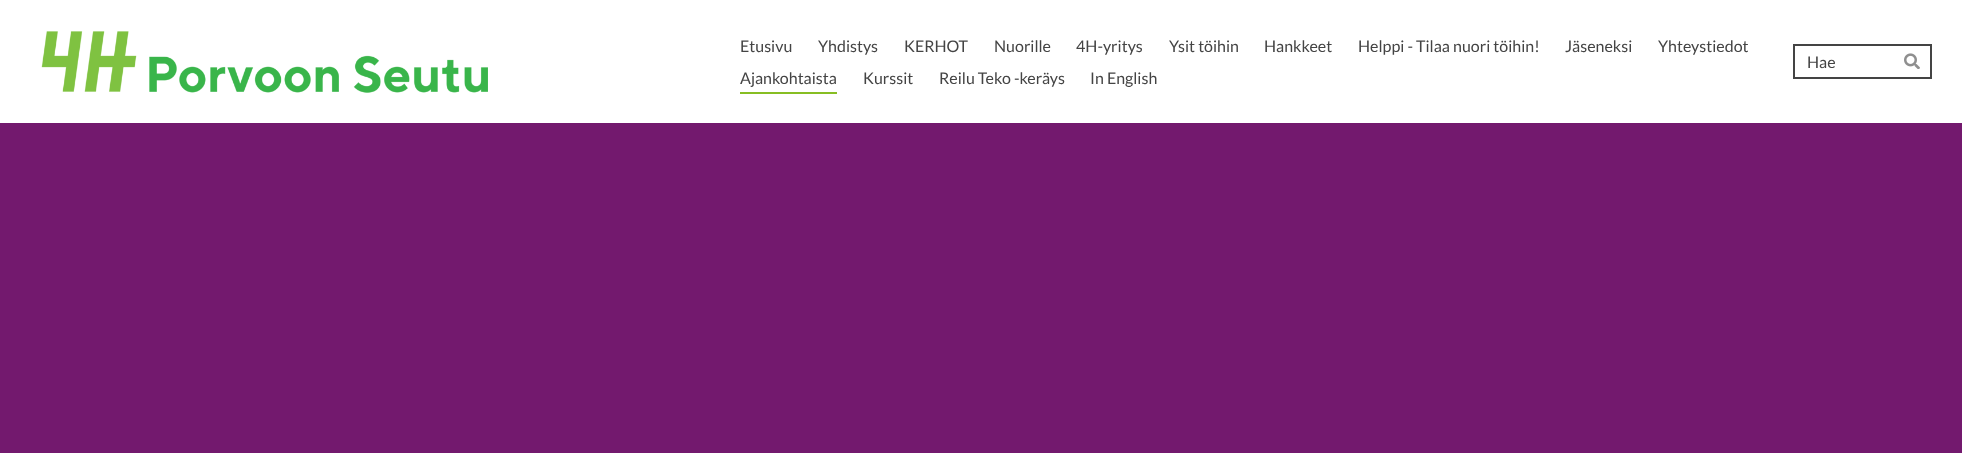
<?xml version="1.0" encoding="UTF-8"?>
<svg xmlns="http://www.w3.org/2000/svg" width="1962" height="470">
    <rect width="100%" height="100%" fill="#FFFFFF"/>
    <rect x="0" y="123" width="1962" height="330" fill="#73196E"/>
    <image x="41" y="31" width="447" height="62" href="img_01.png"/>
    <text x="740" y="52" font-family="Lato" font-size="16" fill="#444444">Etusivu</text>
    <text x="818" y="52" font-family="Lato" font-size="16" fill="#444444">Yhdistys</text>
    <text x="904" y="52" font-family="Lato" font-size="16" fill="#444444">KERHOT</text>
    <text x="994" y="52" font-family="Lato" font-size="16" fill="#444444">Nuorille</text>
    <text x="1076" y="52" font-family="Lato" font-size="16" fill="#444444">4H-yritys</text>
    <text x="1169" y="52" font-family="Lato" font-size="16" fill="#444444">Ysit töihin</text>
    <text x="1264" y="52" font-family="Lato" font-size="16" fill="#444444">Hankkeet</text>
    <text x="1358" y="52" font-family="Lato" font-size="16" fill="#444444">Helppi - Tilaa nuori töihin!</text>
    <text x="1565" y="52" font-family="Lato" font-size="16" fill="#444444">Jäseneksi</text>
    <text x="1658" y="52" font-family="Lato" font-size="16" fill="#444444">Yhteystiedot</text>
    <text x="740" y="84" font-family="Lato" font-size="16" fill="#444444">Ajankohtaista</text>
    <rect x="740" y="92" width="97" height="2" fill="#87BE23"/>
    <text x="863" y="84" font-family="Lato" font-size="16" fill="#444444">Kurssit</text>
    <text x="939" y="84" font-family="Lato" font-size="16" fill="#444444">Reilu Teko -keräys</text>
    <text x="1090" y="84" font-family="Lato" font-size="16" fill="#444444">In English</text>
    <rect x="1794" y="45" width="137" height="33" fill="none" stroke="#444444" stroke-width="2"/>
    <text x="1807" y="68" font-family="Lato" font-size="16" fill="#444444">Hae</text>
    <image x="1904" y="53" width="16" height="16" href="img_02.png"/>
</svg>
